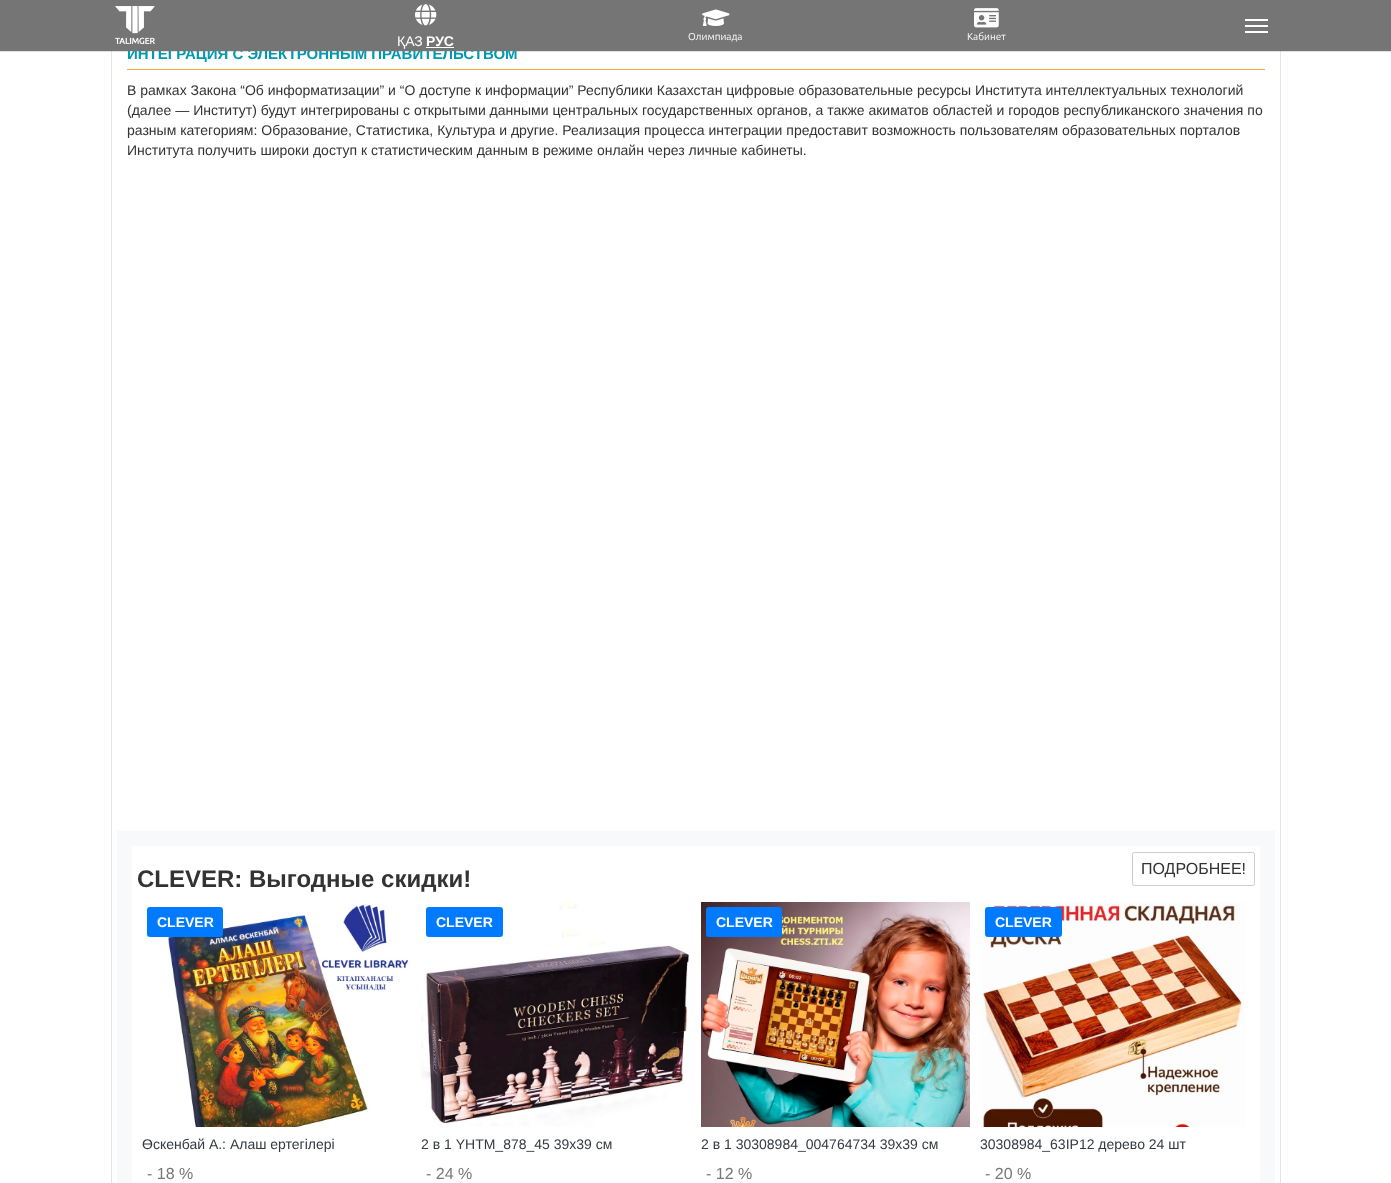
<?xml version="1.0" encoding="UTF-8"?>
<svg xmlns="http://www.w3.org/2000/svg" width="1391" height="1183">
    <defs>
        <filter id="blur1" x="-50%" y="-200%" width="200%" height="500%"><feGaussianBlur stdDeviation="0.5"/></filter>
    </defs>
    <rect width="100%" height="100%" fill="#FFFFFF"/>
    <rect x="1280" y="51" width="1" height="1132" fill="#E5E5E5"/>
    <rect x="111" y="51" width="1" height="1132" fill="#E5E5E5"/>
    <rect x="-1" y="-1" width="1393" height="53" fill="#000000" fill-opacity="0.12" filter="url(#blur1)"/>
    <text x="127" y="59" font-family="Liberation Sans" font-size="15" font-weight="700" fill="#0099B0">ИНТЕГРАЦИЯ С ЭЛЕКТРОННЫМ ПРАВИТЕЛЬСТВОМ</text>
    <rect x="0" y="0" width="1391" height="51" fill="#757575"/>
    <image x="115" y="6" width="40" height="38" href="img_01.png"/>
    <rect x="1245" y="25" width="23" height="2" fill="#FFFFFF"/>
    <rect x="1245" y="19" width="23" height="2" fill="#FFFFFF"/>
    <rect x="1245" y="31" width="23" height="2" fill="#FFFFFF"/>
    <image x="415" y="4" width="22" height="22" href="img_02.png"/>
    <text x="397" y="46" font-family="Liberation Sans" font-size="14" fill="#FFFFFF">ҚАЗ</text>
    <text x="426" y="46" font-family="Liberation Sans" font-size="14" font-weight="700" fill="#FFFFFF">РУС</text>
    <rect x="426" y="47" width="28" height="1" fill="#FFFFFF"/>
    <image x="702" y="9" width="28" height="17" href="img_03.png"/>
    <text x="688" y="40" font-family="Ubuntu" font-size="10" fill="#FFFFFF">Олимпиада</text>
    <image x="974" y="8" width="25" height="20" href="img_04.png"/>
    <text x="967" y="40" font-family="Ubuntu" font-size="10" fill="#FFFFFF">Кабинет</text>
    <rect x="127" y="69" width="1138" height="1" fill="#FFA930"/>
    <text font-family="Liberation Sans" font-size="14" fill="#333333">
        <tspan x="127" y="95">В рамках Закона “Об информатизации” и “О доступе к информации” Республики Казахстан цифровые образовательные ресурсы Института интеллектуальных технологий</tspan>
        <tspan x="127" y="115">(далее — Институт) будут интегрированы с открытыми данными центральных государственных органов, а также акиматов областей и городов республиканского значения по</tspan>
        <tspan x="127" y="135">разным категориям: Образование, Статистика, Культура и другие. Реализация процесса интеграции предоставит возможность пользователям образовательных порталов</tspan>
        <tspan x="127" y="155">Института получить широки доступ к статистическим данным в режиме онлайн через личные кабинеты.</tspan>
    </text>
    <rect x="117" y="831" width="1158" height="352" fill="#F8F9FA"/>
    <rect x="132" y="846" width="1128" height="337" fill="#FFFFFF"/>
    <text x="137" y="887" font-family="Liberation Sans" font-size="24" font-weight="700" fill="#333333">CLEVER: Выгодные скидки!</text>
    <rect x="1132.5" y="852.5" width="122" height="33" rx="2" fill="none" stroke="#CCCCCC"/>
    <text x="1141" y="874" font-family="Liberation Sans" font-size="16" fill="#333333">ПОДРОБНЕЕ!</text>
    <image x="168" y="903" width="241" height="224" href="img_05.png"/>
    <rect x="147" y="907" width="76" height="30" rx="3" fill="#007BFF"/>
    <text x="157" y="927" font-family="Liberation Sans" font-size="14" font-weight="700" fill="#FFFFFF">CLEVER</text>
    <text x="142" y="1149" font-family="Liberation Sans" font-size="14" fill="#343A40">Өскенбай А.: Алаш ертегілері</text>
    <text x="147" y="1179" font-family="Liberation Sans" font-size="16" fill="#777777">- 18 %</text>
    <image x="421" y="902" width="269" height="225" href="img_06.png"/>
    <rect x="426" y="907" width="77" height="30" rx="3" fill="#007BFF"/>
    <text x="436" y="927" font-family="Liberation Sans" font-size="14" font-weight="700" fill="#FFFFFF">CLEVER</text>
    <text x="421" y="1149" font-family="Liberation Sans" font-size="14" fill="#343A40">2 в 1 YHTM_878_45 39x39 см</text>
    <text x="426" y="1179" font-family="Liberation Sans" font-size="16" fill="#777777">- 24 %</text>
    <image x="701" y="902" width="269" height="225" href="img_07.png"/>
    <rect x="706" y="907" width="76" height="30" rx="3" fill="#007BFF"/>
    <text x="716" y="927" font-family="Liberation Sans" font-size="14" font-weight="700" fill="#FFFFFF">CLEVER</text>
    <text x="701" y="1149" font-family="Liberation Sans" font-size="14" fill="#343A40">2 в 1 30308984_004764734 39x39 см</text>
    <text x="706" y="1179" font-family="Liberation Sans" font-size="16" fill="#777777">- 12 %</text>
    <image x="980" y="902" width="265" height="225" href="img_08.png"/>
    <rect x="985" y="907" width="77" height="30" rx="3" fill="#007BFF"/>
    <text x="995" y="927" font-family="Liberation Sans" font-size="14" font-weight="700" fill="#FFFFFF">CLEVER</text>
    <text x="980" y="1149" font-family="Liberation Sans" font-size="14" fill="#343A40">30308984_63IP12 дерево 24 шт</text>
    <text x="985" y="1179" font-family="Liberation Sans" font-size="16" fill="#777777">- 20 %</text>
</svg>
